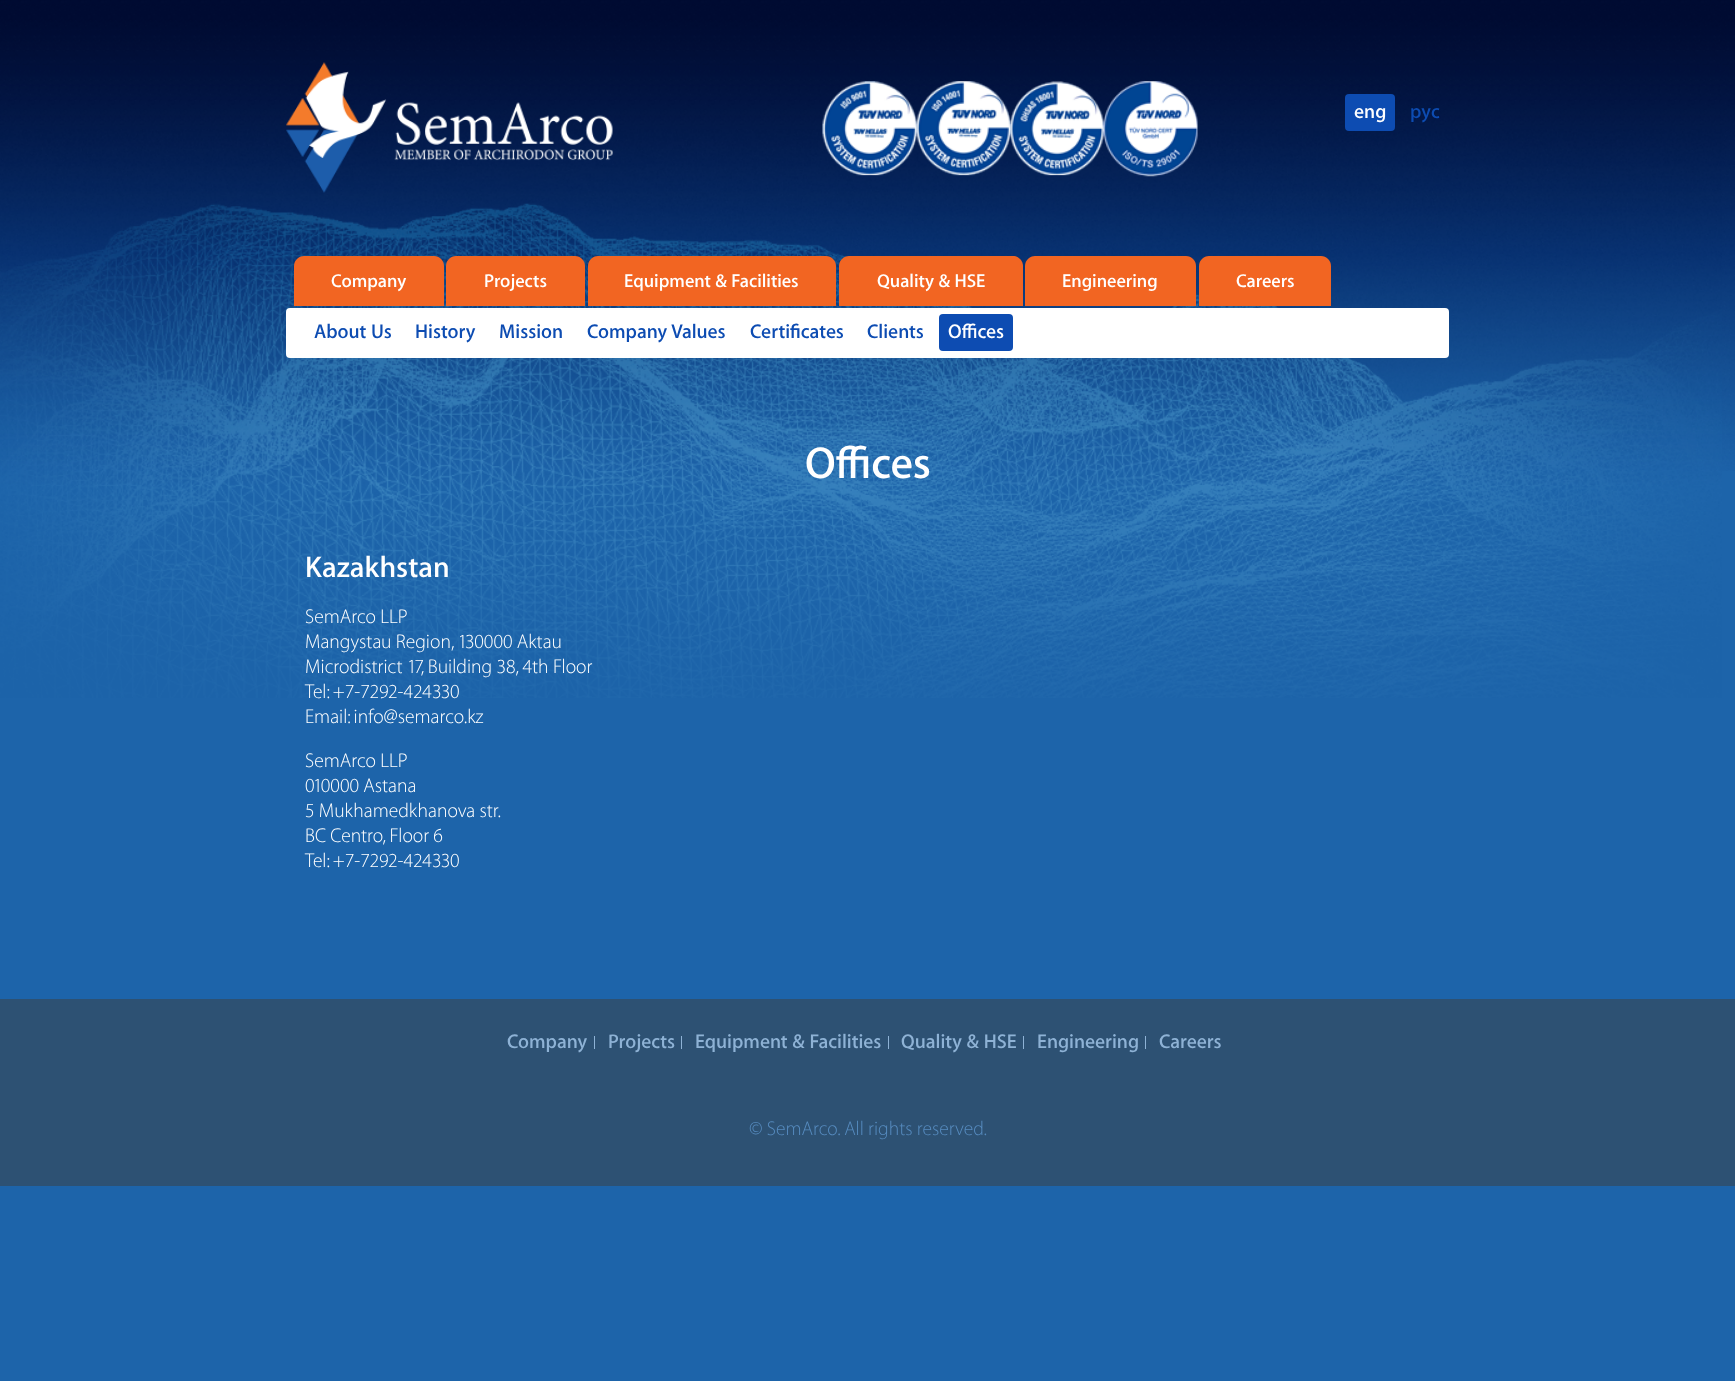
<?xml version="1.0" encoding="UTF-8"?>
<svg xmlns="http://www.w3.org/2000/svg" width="1735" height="1381">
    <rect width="100%" height="100%" fill="#1D64AA"/>
    <image x="0" y="0" width="1735" height="471" href="img_01.png"/>
    <image x="0" y="129" width="1722" height="569" href="img_02.png"/>
    <image x="286" y="62" width="327" height="131" href="img_03.png"/>
    <image x="822" y="81" width="376" height="96" href="img_04.png"/>
    <rect x="1345" y="94" width="50" height="37" rx="4" fill="#0D4CB2"/>
    <text x="1354" y="118" font-family="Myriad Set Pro" font-size="20" font-weight="600" fill="#FFFFFF">eng</text>
    <text x="1410" y="118" font-family="Myriad Set Pro" font-size="20" font-weight="600" fill="#0D4CB2">рус</text>
    <path d="M 304 256 H 434 C 439.5 256 444 260.5 444 266 V 306 H 294 V 266 C 294 260.5 298.5 256 304 256 Z" fill="#F26522"/>
    <text x="331" y="287" font-family="Myriad Set Pro" font-size="18.75" font-weight="600" fill="#FFFFFF">Company</text>
    <path d="M 456 256 H 575 C 580.5 256 585 260.5 585 266 V 306 H 446 V 266 C 446 260.5 450.5 256 456 256 Z" fill="#F26522"/>
    <text x="484" y="287" font-family="Myriad Set Pro" font-size="18.75" font-weight="600" fill="#FFFFFF">Projects</text>
    <path d="M 598 256 H 826 C 831.5 256 836 260.5 836 266 V 306 H 588 V 266 C 588 260.5 592.5 256 598 256 Z" fill="#F26522"/>
    <text x="624" y="287" font-family="Myriad Set Pro" font-size="18.75" font-weight="600" fill="#FFFFFF">Equipment &amp; Facilities</text>
    <path d="M 849 256 H 1013 C 1018.5 256 1023 260.5 1023 266 V 306 H 839 V 266 C 839 260.5 843.5 256 849 256 Z" fill="#F26522"/>
    <text x="877" y="287" font-family="Myriad Set Pro" font-size="18.75" font-weight="600" fill="#FFFFFF">Quality &amp; HSE</text>
    <path d="M 1035 256 H 1186 C 1191.5 256 1196 260.5 1196 266 V 306 H 1025 V 266 C 1025 260.5 1029.5 256 1035 256 Z" fill="#F26522"/>
    <text x="1062" y="287" font-family="Myriad Set Pro" font-size="18.75" font-weight="600" fill="#FFFFFF">Engineering</text>
    <path d="M 1209 256 H 1321 C 1326.5 256 1331 260.5 1331 266 V 306 H 1199 V 266 C 1199 260.5 1203.5 256 1209 256 Z" fill="#F26522"/>
    <text x="1236" y="287" font-family="Myriad Set Pro" font-size="18.75" font-weight="600" fill="#FFFFFF">Careers</text>
    <rect x="286" y="308" width="1163" height="50" rx="4" fill="#FFFFFF"/>
    <text x="314" y="338" font-family="Myriad Set Pro" font-size="20" font-weight="600" fill="#0D4CB2">About Us</text>
    <text x="415" y="338" font-family="Myriad Set Pro" font-size="20" font-weight="600" fill="#0D4CB2">History</text>
    <text x="499" y="338" font-family="Myriad Set Pro" font-size="20" font-weight="600" fill="#0D4CB2">Mission</text>
    <text x="587" y="338" font-family="Myriad Set Pro" font-size="20" font-weight="600" fill="#0D4CB2">Company Values</text>
    <text x="750" y="338" font-family="Myriad Set Pro" font-size="20" font-weight="600" fill="#0D4CB2">Certificates</text>
    <text x="867" y="338" font-family="Myriad Set Pro" font-size="20" font-weight="600" fill="#0D4CB2">Clients</text>
    <rect x="939" y="314" width="74" height="37" rx="4" fill="#0D4CB2"/>
    <text x="948" y="338" font-family="Myriad Set Pro" font-size="20" font-weight="600" fill="#FFFFFF">Offices</text>
    <text x="805" y="478" font-family="Myriad Set Pro" font-size="45" font-weight="600" fill="#FFFFFF">Offices</text>
    <text x="305" y="577" font-family="Myriad Set Pro" font-size="30" font-weight="600" fill="#FFFFFF">Kazakhstan</text>
    <text font-family="Myriad Set Pro" font-size="20" font-weight="100" fill="#FFFFFF">
        <tspan x="305" y="623">SemArco LLP</tspan>
        <tspan x="305" y="648">Mangystau Region, 130000 Aktau</tspan>
        <tspan x="305" y="673">Microdistrict 17, Building 38, 4th Floor</tspan>
        <tspan x="305" y="698">Tel: +7-7292-424330</tspan>
        <tspan x="305" y="723">Email: info@semarco.kz</tspan>
    </text>
    <text font-family="Myriad Set Pro" font-size="20" font-weight="100" fill="#FFFFFF">
        <tspan x="305" y="767">SemArco LLP</tspan>
        <tspan x="305" y="792">010000 Astana</tspan>
        <tspan x="305" y="817">5 Mukhamedkhanova str.</tspan>
        <tspan x="305" y="842">BC Centro, Floor 6</tspan>
        <tspan x="305" y="867">Tel: +7-7292-424330</tspan>
    </text>
    <rect x="0" y="999" width="1735" height="187" fill="#2D5173"/>
    <text x="507" y="1048" font-family="Myriad Set Pro" font-size="20" font-weight="600" fill="#8EB2D5">Company</text>
    <rect x="594" y="1036" width="1" height="13" fill="#8EB2D5"/>
    <text x="608" y="1048" font-family="Myriad Set Pro" font-size="20" font-weight="600" fill="#8EB2D5">Projects</text>
    <rect x="681" y="1036" width="1" height="13" fill="#8EB2D5"/>
    <text x="695" y="1048" font-family="Myriad Set Pro" font-size="20" font-weight="600" fill="#8EB2D5">Equipment &amp; Facilities</text>
    <rect x="888" y="1036" width="1" height="13" fill="#8EB2D5"/>
    <text x="901" y="1048" font-family="Myriad Set Pro" font-size="20" font-weight="600" fill="#8EB2D5">Quality &amp; HSE</text>
    <rect x="1023" y="1036" width="1" height="13" fill="#8EB2D5"/>
    <text x="1037" y="1048" font-family="Myriad Set Pro" font-size="20" font-weight="600" fill="#8EB2D5">Engineering</text>
    <rect x="1145" y="1036" width="1" height="13" fill="#8EB2D5"/>
    <text x="1159" y="1048" font-family="Myriad Set Pro" font-size="20" font-weight="600" fill="#8EB2D5">Careers</text>
    <text x="749" y="1135" font-family="Myriad Set Pro" font-size="20" font-weight="100" fill="#568BBF">© SemArco. All rights reserved.</text>
</svg>
